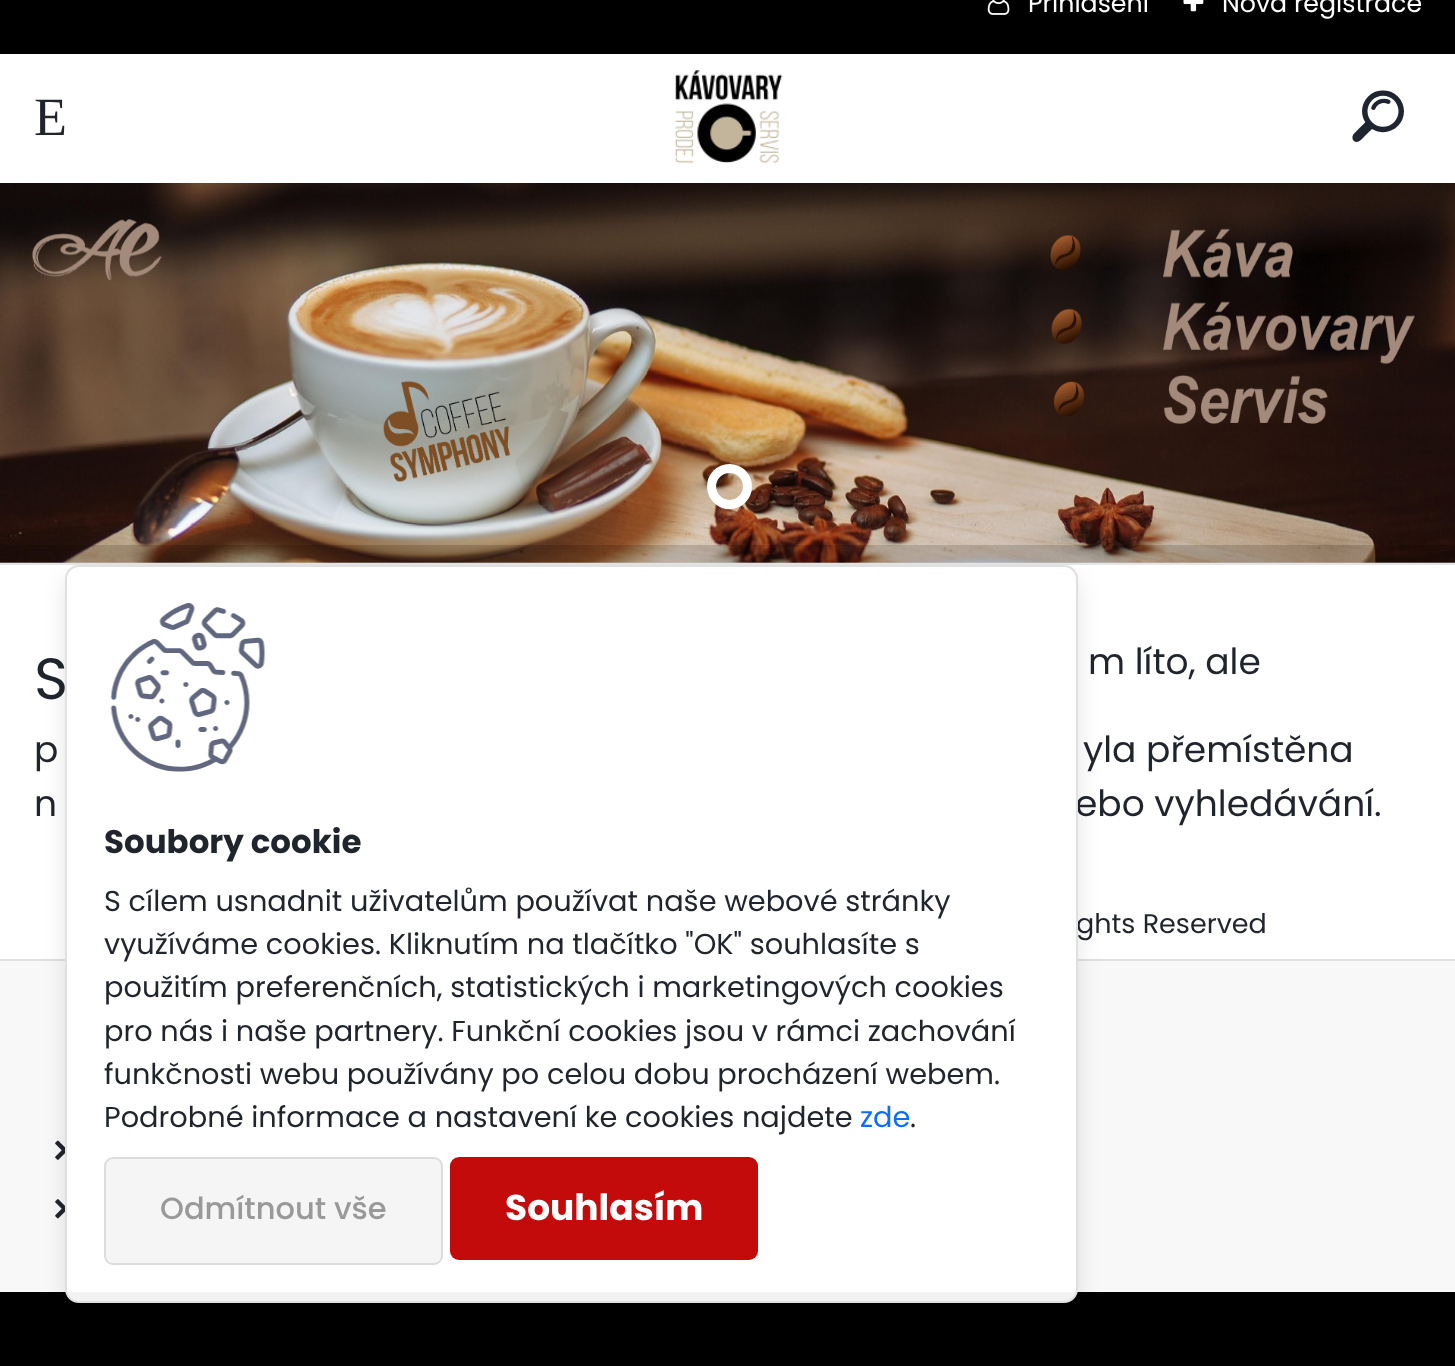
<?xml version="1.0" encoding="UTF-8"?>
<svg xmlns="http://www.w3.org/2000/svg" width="1455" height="1366">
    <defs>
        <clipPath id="clip1"><path d="M 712 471 H 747 V 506 H 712 Z M 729.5 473 C 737 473 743 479 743 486.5 C 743 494 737 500 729.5 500 C 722 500 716 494 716 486.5 C 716 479 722 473 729.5 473 Z" clip-rule="evenodd"/></clipPath>
        <filter id="blur1" x="-50%" y="-200%" width="200%" height="500%"><feGaussianBlur stdDeviation="1"/></filter>
        <clipPath id="clip2"><path d="M 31 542 H 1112 V 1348 H 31 Z M 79 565 H 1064 C 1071.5 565 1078 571.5 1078 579 V 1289 C 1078 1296.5 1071.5 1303 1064 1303 H 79 C 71.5 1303 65 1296.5 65 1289 V 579 C 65 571.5 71.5 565 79 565 Z" clip-rule="evenodd"/></clipPath>
        <filter id="blur2" x="-50%" y="-200%" width="200%" height="500%"><feGaussianBlur stdDeviation="11"/></filter>
    </defs>
    <rect width="100%" height="100%" fill="#FFFFFF"/>
    <rect x="0" y="0" width="1455" height="54" fill="#000000"/>
    <image x="987" y="0" width="23" height="15" href="img_01.png"/>
    <text x="1028" y="12" font-family="Poppins" font-size="25.25" fill="#FFFFFF">Přihlášení</text>
    <image x="1183" y="0" width="21" height="12" href="img_02.png"/>
    <text x="1222" y="12" font-family="Poppins" font-size="25.25" fill="#FFFFFF">Nová registrace</text>
    <rect x="0" y="563" width="1455" height="2" fill="#E6E6E6"/>
    <text x="34" y="135" font-family="Liberation Serif" font-size="54" fill="#1F242D">E</text>
    <image x="674" y="70" width="109" height="94" href="img_03.png"/>
    <image x="1352" y="90" width="52" height="52" href="img_04.png"/>
    <image x="0" y="183" width="1455" height="380" href="img_05.png"/>
    <circle cx="729.5" cy="486.5" r="18" fill="none" stroke="#FFFFFF" stroke-width="9"/>
    <g clip-path="url(#clip1)">
        <rect x="716" y="475" width="27" height="27" rx="13.5" fill="#FFFFFF" filter="url(#blur1)"/>
    </g>
    <rect x="0" y="545" width="1455" height="18" fill="#000000" fill-opacity="0.15"/>
    <text x="34" y="699" font-family="Poppins" font-size="58" fill="#1F242D">S</text>
    <text x="1088" y="674" font-family="Poppins" font-size="36" fill="#1F242D">m líto, ale</text>
    <text x="34" y="762" font-family="Poppins" font-size="36" fill="#1F242D">p</text>
    <text x="1083" y="762" font-family="Poppins" font-size="36" fill="#1F242D">yla přemístěna</text>
    <text x="34" y="816" font-family="Poppins" font-size="36" fill="#1F242D">n</text>
    <text x="1075" y="816" font-family="Poppins" font-size="36" fill="#1F242D">ebo vyhledávání.</text>
    <text x="1076" y="933" font-family="Poppins" font-size="27" fill="#1F242D">ghts Reserved</text>
    <rect x="0" y="961" width="1455" height="331" fill="#F8F8F8"/>
    <rect x="0" y="959" width="1455" height="2" fill="#DFDFDF"/>
    <image x="55" y="1140" width="13" height="20" href="img_06.png"/>
    <image x="55" y="1199" width="13" height="20" href="img_07.png"/>
    <rect x="0" y="1292" width="1455" height="74" fill="#000000"/>
    <g clip-path="url(#clip2)">
        <rect x="65" y="576" width="1013" height="738" rx="14" fill="#000000" fill-opacity="0.1" filter="url(#blur2)"/>
    </g>
    <rect x="66" y="566" width="1011" height="736" rx="13" fill="#FFFFFF" fill-opacity="0.95" stroke="#E0E0E0" stroke-width="2"/>
    <image x="110" y="603" width="155" height="169" href="img_08.png"/>
    <text x="104" y="853" font-family="Poppins" font-size="32.5" font-weight="700" fill="#1F242D">Soubory cookie</text>
    <text font-family="Poppins" font-size="28.8" fill="#1F242D">
        <tspan x="104" y="911">S cílem usnadnit uživatelům používat naše webové stránky</tspan>
        <tspan x="104" y="954">využíváme cookies. Kliknutím na tlačítko "OK" souhlasíte s</tspan>
        <tspan x="104" y="997">použitím preferenčních, statistických i marketingových cookies</tspan>
        <tspan x="104" y="1041">pro nás i naše partnery. Funkční cookies jsou v rámci zachování</tspan>
        <tspan x="104" y="1084">funkčnosti webu používány po celou dobu procházení webem.</tspan>
        <tspan x="104" y="1127">Podrobné informace a nastavení ke cookies najdete</tspan>
    </text>
    <text x="860" y="1127" font-family="Poppins" font-size="28.8" fill="#0D6EFD">zde</text>
    <text x="910" y="1127" font-family="Poppins" font-size="28.8" fill="#1F242D">.</text>
    <rect x="104" y="1157" width="339" height="108" rx="9" fill="#F5F5F5"/>
    <rect x="105" y="1158" width="337" height="106" rx="8" fill="none" stroke="#000000" stroke-opacity="0.1" stroke-width="2"/>
    <text x="160" y="1219" font-family="Poppins" font-size="30.5" font-weight="500" fill="#999999">Odmítnout vše</text>
    <rect x="450" y="1157" width="308" height="103" rx="9" fill="#C40B0B"/>
    <text x="505" y="1220" font-family="Poppins" font-size="36" font-weight="700" fill="#FFFFFF">Souhlasím</text>
</svg>
